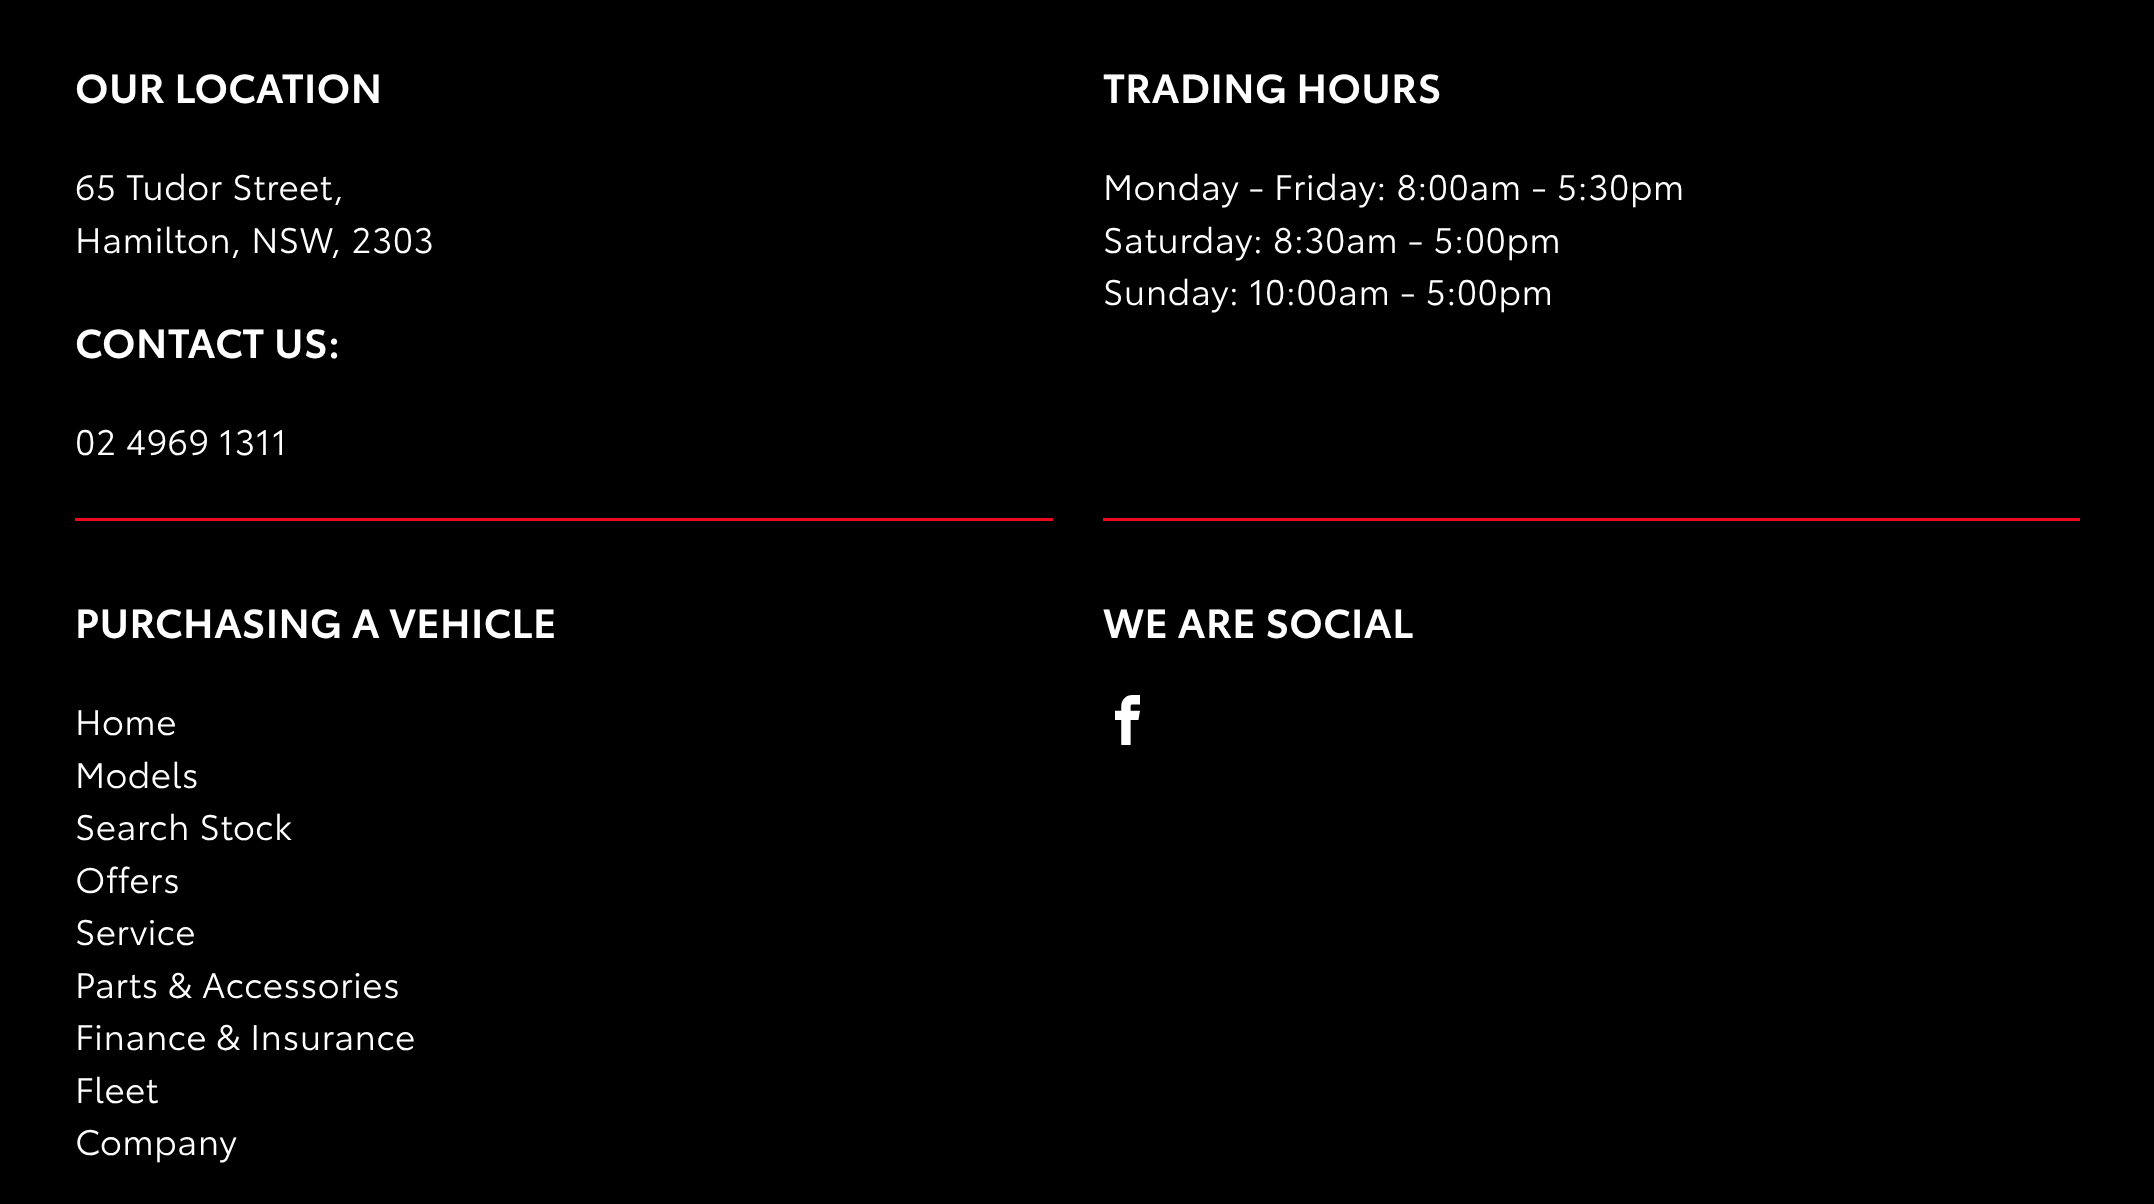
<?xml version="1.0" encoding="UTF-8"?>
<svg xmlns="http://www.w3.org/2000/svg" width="2154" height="1204">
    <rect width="100%" height="100%" fill="#000000"/>
    <text x="75" y="103" font-family="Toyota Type" font-size="40" font-weight="600" letter-spacing="0.4" fill="#FFFFFF">OUR LOCATION</text>
    <text font-family="Toyota Type" font-size="35" letter-spacing="0.4" fill="#FFFFFF">
        <tspan x="75" y="200">65 Tudor Street,</tspan>
        <tspan x="75" y="253">Hamilton, NSW, 2303</tspan>
    </text>
    <text x="75" y="358" font-family="Toyota Type" font-size="40" font-weight="600" letter-spacing="0.4" fill="#FFFFFF">CONTACT US:</text>
    <text x="75" y="455" font-family="Toyota Type" font-size="35" letter-spacing="0.4" fill="#FFFFFF">02 4969 1311</text>
    <text x="1103" y="103" font-family="Toyota Type" font-size="40" font-weight="600" letter-spacing="0.4" fill="#FFFFFF">TRADING HOURS</text>
    <text font-family="Toyota Type" font-size="35" letter-spacing="0.4" fill="#FFFFFF">
        <tspan x="1103" y="200">Monday - Friday: 8:00am - 5:30pm</tspan>
        <tspan x="1103" y="253">Saturday: 8:30am - 5:00pm</tspan>
        <tspan x="1103" y="305">Sunday: 10:00am - 5:00pm</tspan>
    </text>
    <rect x="75" y="518" width="978" height="3" fill="#EB0A1E"/>
    <text x="75" y="638" font-family="Toyota Type" font-size="40" font-weight="600" letter-spacing="0.4" fill="#FFFFFF">PURCHASING A VEHICLE</text>
    <text font-family="Toyota Type" font-size="35" letter-spacing="0.4" fill="#FFFFFF">
        <tspan x="75" y="735">Home</tspan>
        <tspan x="75" y="788">Models</tspan>
        <tspan x="75" y="840">Search Stock</tspan>
        <tspan x="75" y="893">Offers</tspan>
        <tspan x="75" y="945">Service</tspan>
        <tspan x="75" y="998">Parts &amp; Accessories</tspan>
        <tspan x="75" y="1050">Finance &amp; Insurance</tspan>
        <tspan x="75" y="1103">Fleet</tspan>
        <tspan x="75" y="1155">Company</tspan>
    </text>
    <rect x="1103" y="518" width="977" height="3" fill="#EB0A1E"/>
    <text x="1103" y="638" font-family="Toyota Type" font-size="40" font-weight="600" letter-spacing="0.4" fill="#FFFFFF">WE ARE SOCIAL</text>
    <image x="1115" y="695" width="25" height="50" href="img_01.png"/>
</svg>
